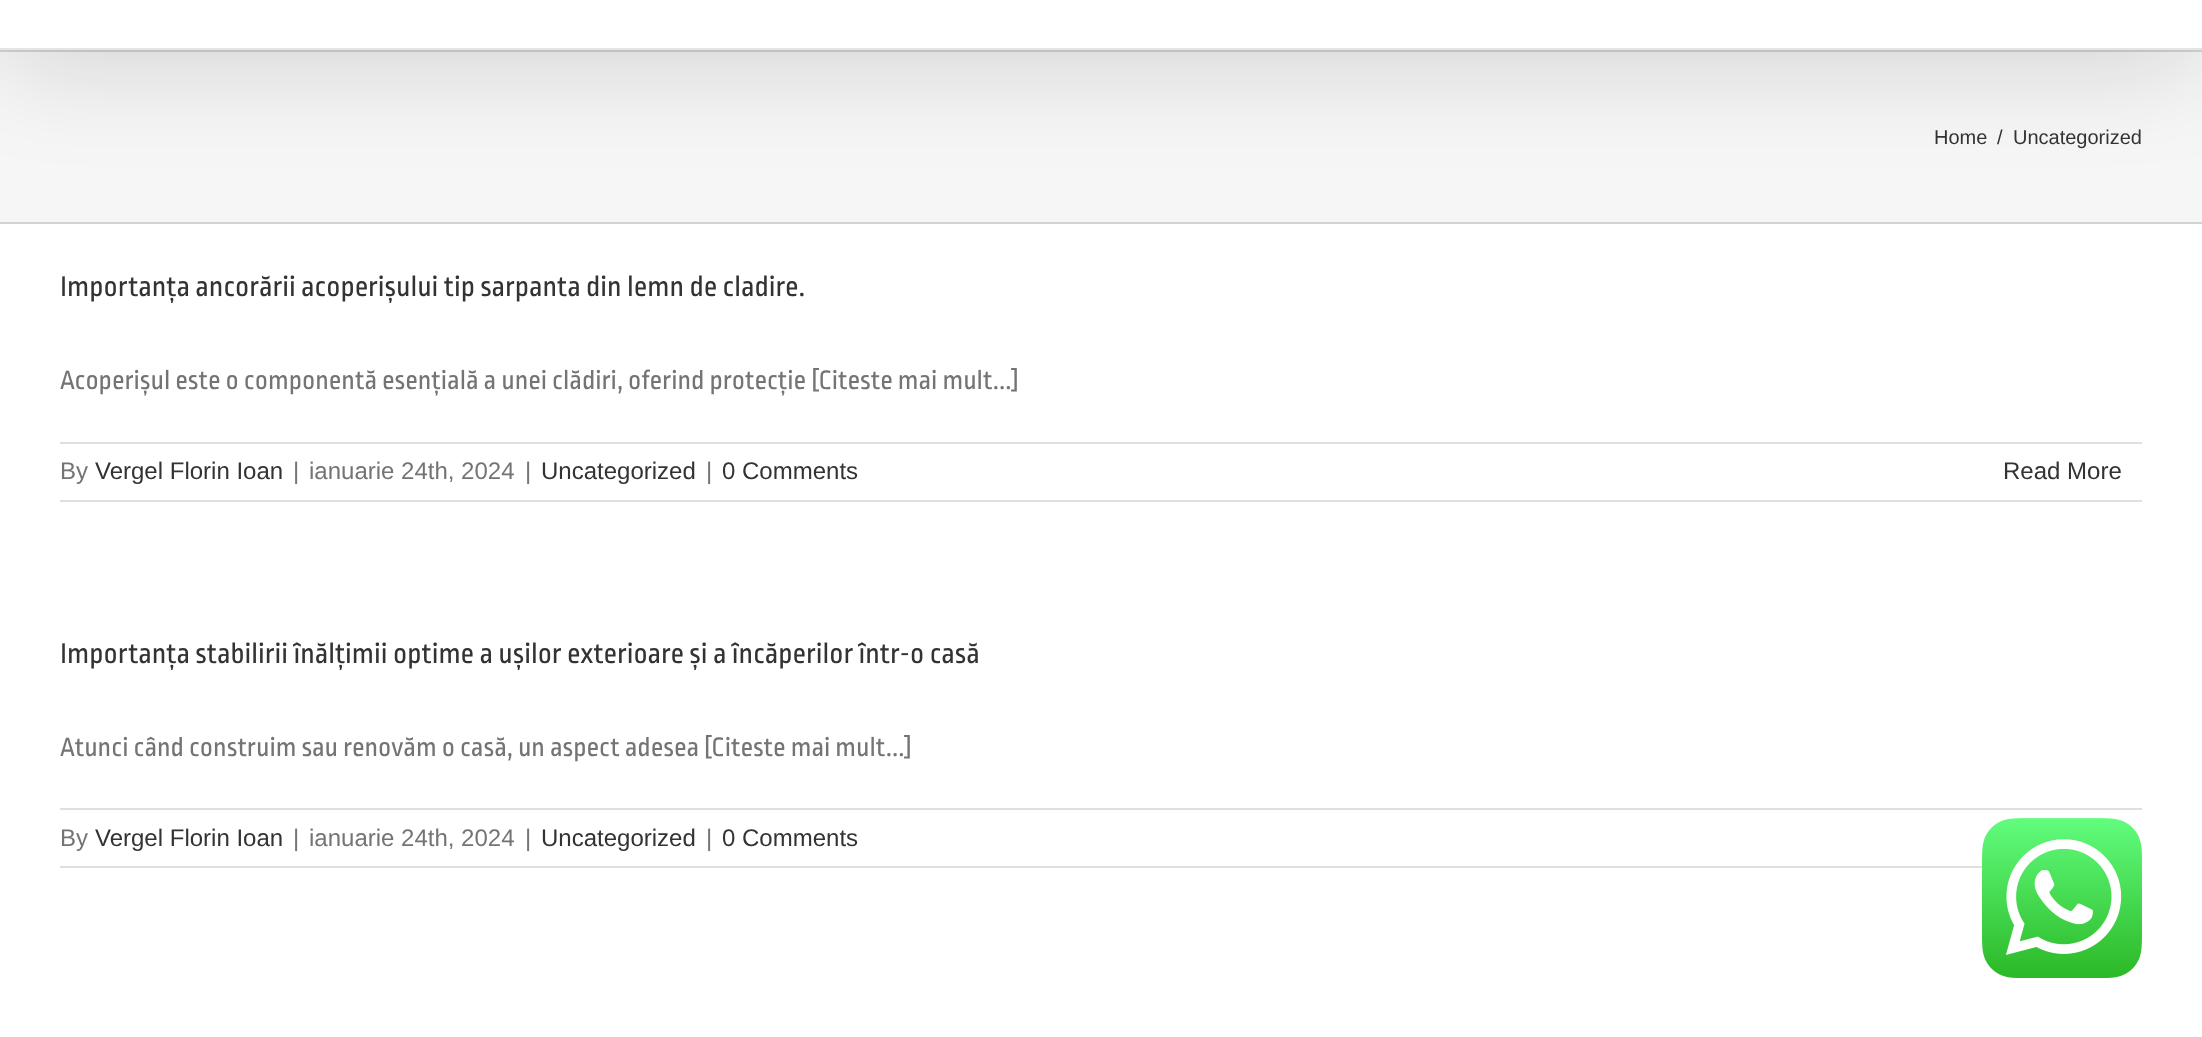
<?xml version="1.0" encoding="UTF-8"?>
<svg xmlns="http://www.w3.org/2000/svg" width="2202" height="1037">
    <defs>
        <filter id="blur1" x="-50%" y="-200%" width="200%" height="500%"><feGaussianBlur stdDeviation="50"/></filter>
    </defs>
    <rect width="100%" height="100%" fill="#F6F6F6"/>
    <rect x="0" y="50" width="2202" height="2" fill="#D2D3D4"/>
    <rect x="4" y="-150" width="2194" height="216" fill="#000000" fill-opacity="0.14" filter="url(#blur1)"/>
    <rect x="0" y="0" width="2202" height="48" fill="#FFFFFF"/>
    <rect x="0" y="48" width="2202" height="2" fill="#E5E5E5"/>
    <rect x="0" y="222" width="2202" height="2" fill="#D2D3D4"/>
    <text x="1934" y="144" font-family="Liberation Sans" font-size="20" fill="#333333">Home</text>
    <text x="1997" y="144" font-family="Liberation Sans" font-size="20" fill="#333333">/</text>
    <text x="2013" y="144" font-family="Liberation Sans" font-size="20" fill="#333333">Uncategorized</text>
    <rect x="0" y="224" width="2202" height="813" fill="#FFFFFF"/>
    <text x="60" y="296" font-family="Ropa Sans" font-size="30" fill="#333333">Importanța ancorării acoperișului tip sarpanta din lemn de cladire.</text>
    <text x="60" y="389" font-family="Ropa Sans" font-size="28" fill="#747474">Acoperișul este o componentă esențială a unei clădiri, oferind protecție [Citeste mai mult...]</text>
    <rect x="60" y="442" width="2082" height="2" fill="#E0DEDE"/>
    <rect x="60" y="500" width="2082" height="2" fill="#E0DEDE"/>
    <text x="60" y="479" font-family="Liberation Sans" font-size="24" fill="#747474">By</text>
    <text x="95" y="479" font-family="Liberation Sans" font-size="24" fill="#333333">Vergel Florin Ioan</text>
    <text x="293" y="479" font-family="Liberation Sans" font-size="24" fill="#747474">|</text>
    <text x="309" y="479" font-family="Liberation Sans" font-size="24" fill="#747474">ianuarie 24th, 2024</text>
    <text x="525" y="479" font-family="Liberation Sans" font-size="24" fill="#747474">|</text>
    <text x="541" y="479" font-family="Liberation Sans" font-size="24" fill="#333333">Uncategorized</text>
    <text x="706" y="479" font-family="Liberation Sans" font-size="24" fill="#747474">|</text>
    <text x="722" y="479" font-family="Liberation Sans" font-size="24" fill="#333333">0 Comments</text>
    <text x="2003" y="479" font-family="Liberation Sans" font-size="24" fill="#333333">Read More</text>
    <text x="60" y="663" font-family="Ropa Sans" font-size="30" fill="#333333">Importanța stabilirii înălțimii optime a ușilor exterioare și a încăperilor într-o casă</text>
    <text x="60" y="756" font-family="Ropa Sans" font-size="28" fill="#747474">Atunci când construim sau renovăm o casă, un aspect adesea [Citeste mai mult...]</text>
    <rect x="60" y="808" width="2082" height="2" fill="#E0DEDE"/>
    <rect x="60" y="866" width="1922" height="2" fill="#E0DEDE"/>
    <text x="60" y="846" font-family="Liberation Sans" font-size="24" fill="#747474">By</text>
    <text x="95" y="846" font-family="Liberation Sans" font-size="24" fill="#333333">Vergel Florin Ioan</text>
    <text x="293" y="846" font-family="Liberation Sans" font-size="24" fill="#747474">|</text>
    <text x="309" y="846" font-family="Liberation Sans" font-size="24" fill="#747474">ianuarie 24th, 2024</text>
    <text x="525" y="846" font-family="Liberation Sans" font-size="24" fill="#747474">|</text>
    <text x="541" y="846" font-family="Liberation Sans" font-size="24" fill="#333333">Uncategorized</text>
    <text x="706" y="846" font-family="Liberation Sans" font-size="24" fill="#747474">|</text>
    <text x="722" y="846" font-family="Liberation Sans" font-size="24" fill="#333333">0 Comments</text>
    <image x="1982" y="818" width="160" height="160" href="img_01.png"/>
</svg>
